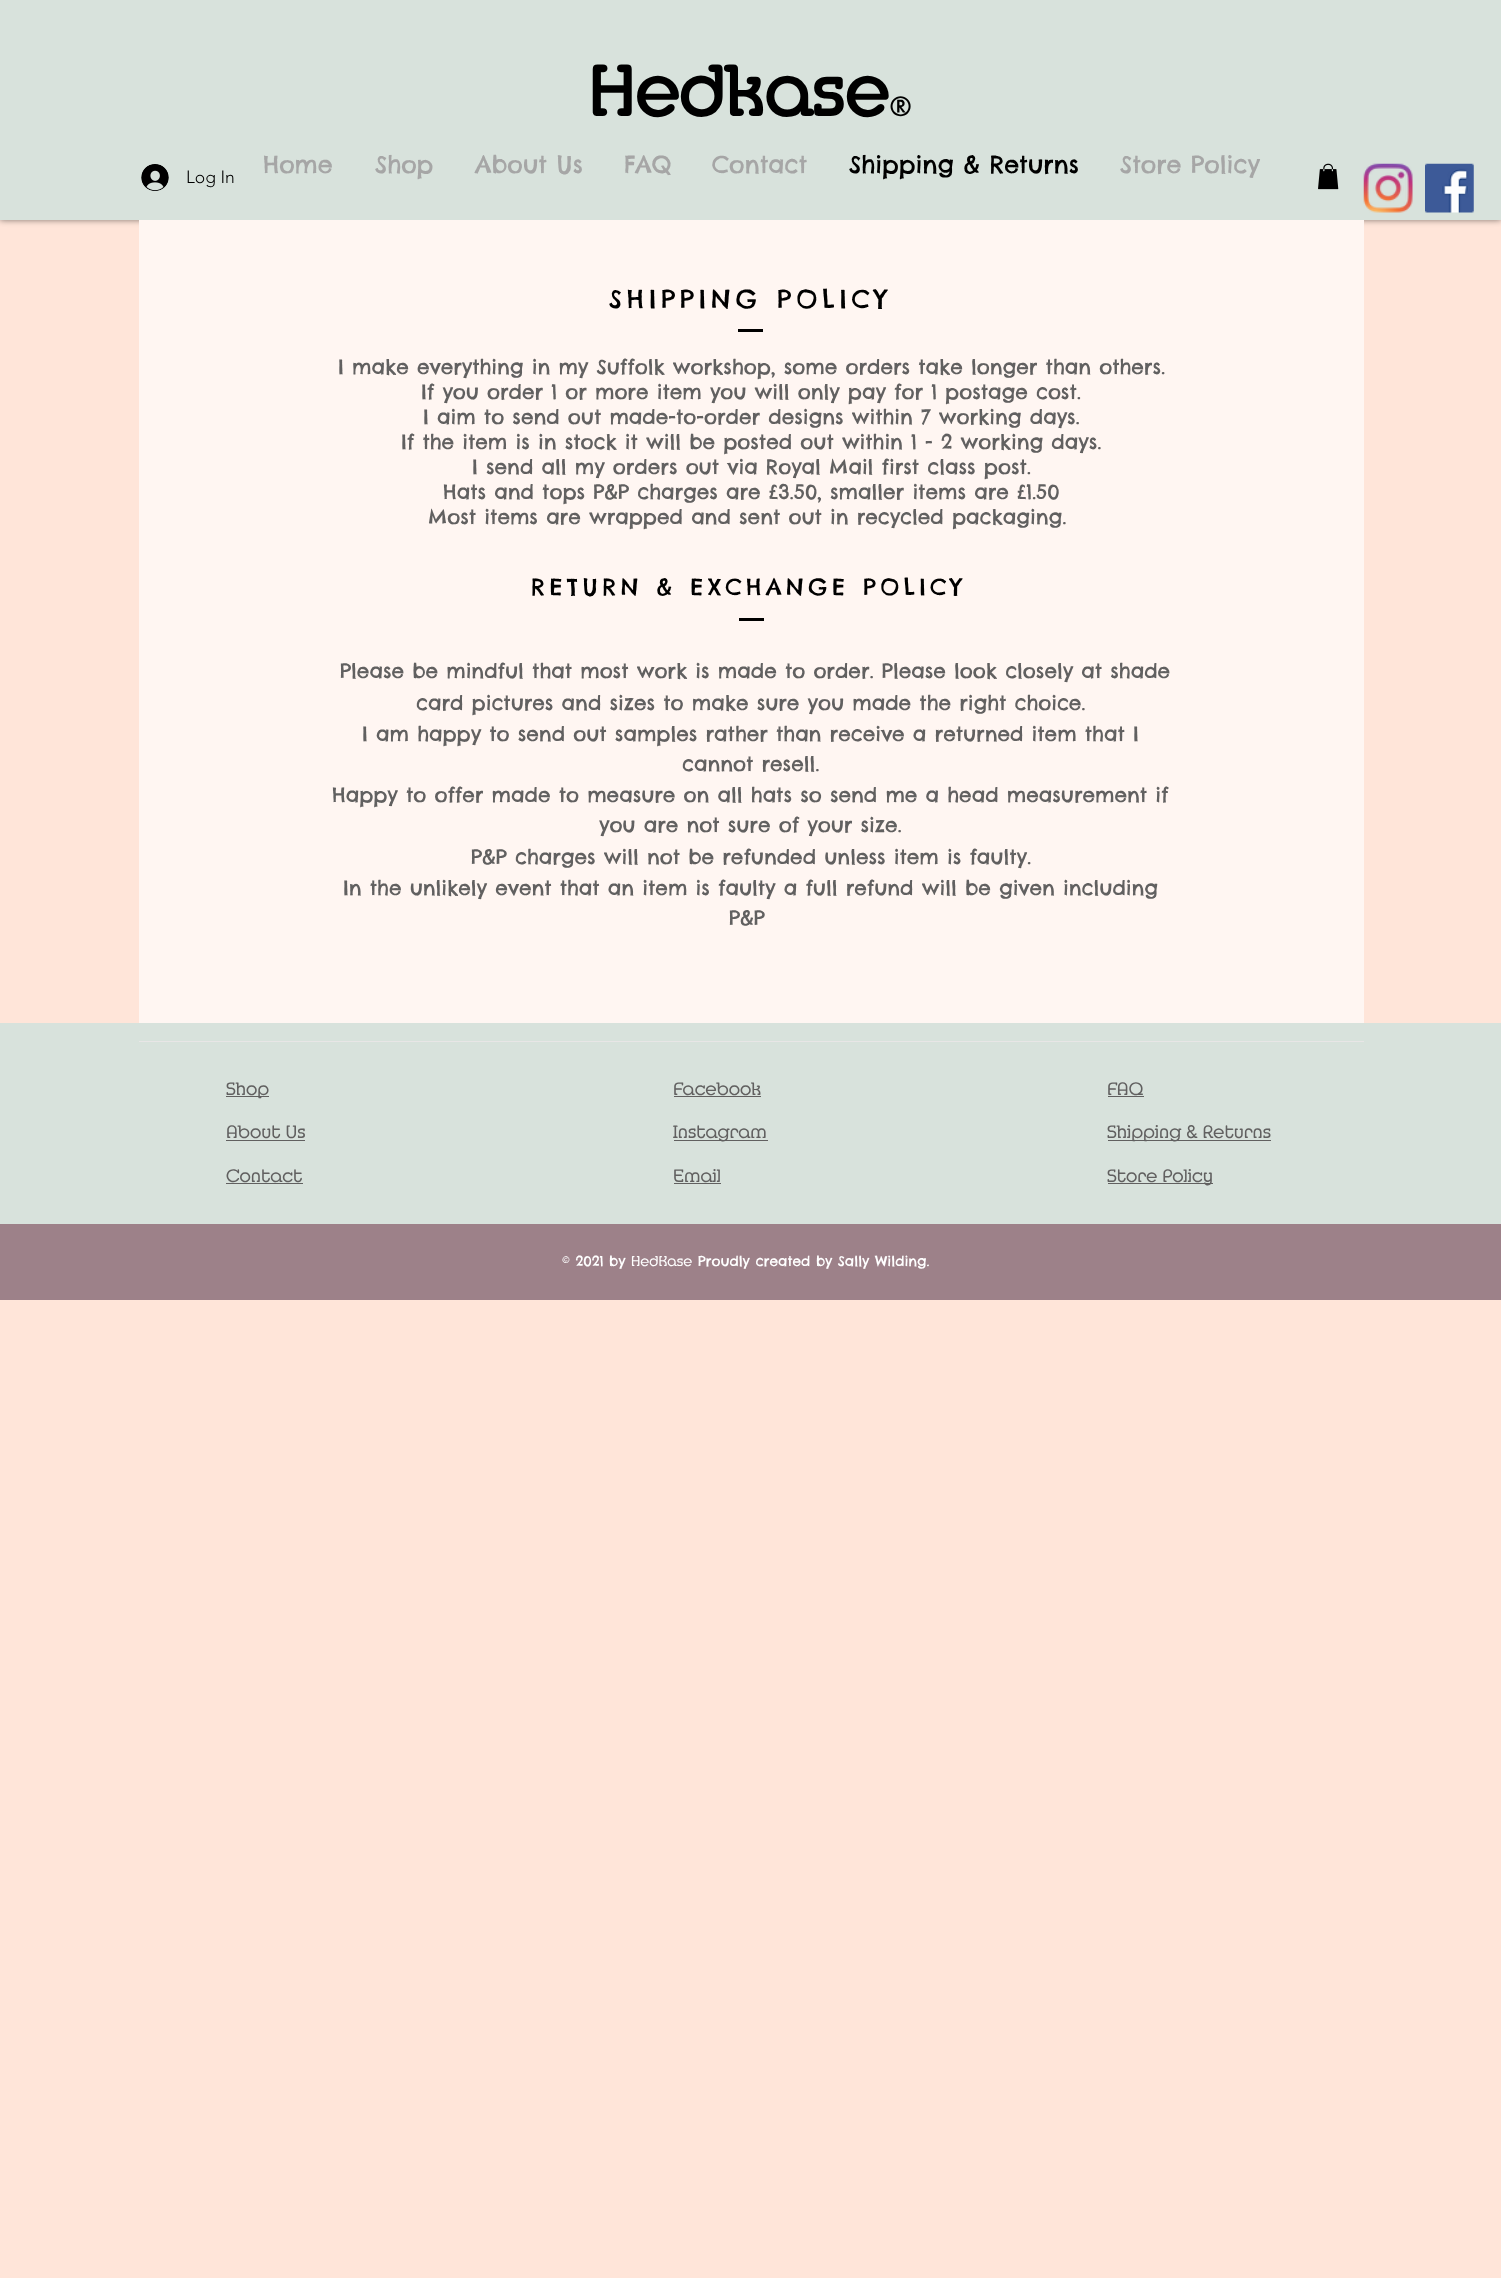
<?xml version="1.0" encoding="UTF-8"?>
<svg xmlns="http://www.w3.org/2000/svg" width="1501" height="2278">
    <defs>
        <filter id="blur1" x="-50%" y="-200%" width="200%" height="500%"><feGaussianBlur stdDeviation="3"/></filter>
    </defs>
    <rect width="100%" height="100%" fill="#FFE5D9"/>
    <rect x="0" y="0" width="1501" height="220" fill="#000000" fill-opacity="0.5" filter="url(#blur1)"/>
    <rect x="0" y="0" width="1501" height="220" fill="#D8E2DC"/>
    <text x="588" y="116" font-family="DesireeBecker" font-size="68.75" font-weight="700" fill="#000000">Hedkase</text>
    <text x="889" y="116" font-family="DesireeBecker" font-size="26" font-weight="700" fill="#000000">®</text>
    <image x="141" y="164" width="28" height="27" href="img_01.png"/>
    <text x="186" y="183" font-family="'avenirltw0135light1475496'" font-size="17.5" font-weight="300" fill="#000000">Log In</text>
    <text x="263" y="173" font-family="Chelsea Market" font-size="23.75" fill="#A6A6A6">Home</text>
    <text x="375" y="173" font-family="Chelsea Market" font-size="23.75" fill="#A6A6A6">Shop</text>
    <text x="475" y="173" font-family="Chelsea Market" font-size="23.75" fill="#A6A6A6">About Us</text>
    <text x="624" y="173" font-family="Chelsea Market" font-size="23.75" fill="#A6A6A6">FAQ</text>
    <text x="712" y="173" font-family="Chelsea Market" font-size="23.75" fill="#A6A6A6">Contact</text>
    <text x="849" y="173" font-family="Chelsea Market" font-size="23.75" fill="#000000">Shipping &amp; Returns</text>
    <text x="1120" y="173" font-family="Chelsea Market" font-size="23.75" fill="#A6A6A6">Store Policy</text>
    <image x="1318" y="163" width="21" height="27" href="img_02.png"/>
    <image x="1363" y="163" width="50" height="50" href="img_03.png"/>
    <image x="1425" y="163" width="49" height="50" href="img_04.png"/>
    <rect x="139" y="220" width="1225" height="803" fill="#FFF6F2"/>
    <text x="609" y="308" font-family="Chelsea Market" font-size="25" letter-spacing="5" fill="#000000">SHIPPING POLICY</text>
    <rect x="738" y="329" width="25" height="3" fill="#000000"/>
    <text x="338" y="374" font-family="Chelsea Market" font-size="20" fill="#616060">I make everything in my Suffolk workshop, some orders take longer than others.</text>
    <text x="421" y="399" font-family="Chelsea Market" font-size="20" fill="#616060">If you order 1 or more item you will only pay for 1 postage cost.</text>
    <text x="423" y="424" font-family="Chelsea Market" font-size="20" fill="#616060">I aim to send out made-to-order designs within 7 working days.</text>
    <text x="401" y="449" font-family="Chelsea Market" font-size="20" fill="#616060">If the item is in stock it will be posted out within 1 - 2 working days.</text>
    <text x="472" y="474" font-family="Chelsea Market" font-size="20" fill="#616060">I send all my orders out via Royal Mail first class post.</text>
    <text x="443" y="499" font-family="Chelsea Market" font-size="20" fill="#616060">Hats and tops P&amp;P charges are £3.50, smaller items are £1.50</text>
    <text x="428" y="524" font-family="Chelsea Market" font-size="20" fill="#616060">Most items are wrapped and sent out in recycled packaging.</text>
    <text x="531" y="595" font-family="Chelsea Market" font-size="22.5" letter-spacing="4.5" fill="#000000">RETURN &amp; EXCHANGE POLICY</text>
    <rect x="739" y="618" width="25" height="3" fill="#000000"/>
    <text x="340" y="678" font-family="Chelsea Market" font-size="20" fill="#616060">Please be mindful that most work is made to order. Please look closely at shade</text>
    <text x="416" y="710" font-family="Chelsea Market" font-size="20" fill="#616060">card pictures and sizes to make sure you made the right choice.</text>
    <text x="362" y="741" font-family="Chelsea Market" font-size="20" fill="#616060">I am happy to send out samples rather than receive a returned item that I</text>
    <text x="682" y="771" font-family="Chelsea Market" font-size="20" fill="#616060">cannot resell.</text>
    <text x="332" y="802" font-family="Chelsea Market" font-size="20" fill="#616060">Happy to offer made to measure on all hats so send me a head measurement if</text>
    <text x="599" y="832" font-family="Chelsea Market" font-size="20" fill="#616060">you are not sure of your size.</text>
    <text x="471" y="864" font-family="Chelsea Market" font-size="20" fill="#616060">P&amp;P charges will not be refunded unless item is faulty.</text>
    <text x="343" y="895" font-family="Chelsea Market" font-size="20" fill="#616060">In the unlikely event that an item is faulty a full refund will be given including</text>
    <text x="729" y="925" font-family="Chelsea Market" font-size="20" fill="#616060">P&amp;P</text>
    <rect x="0" y="1023" width="1501" height="201" fill="#D8E2DC"/>
    <rect x="139" y="1041" width="1225" height="1" fill="#E8E6E6"/>
    <rect x="226" y="1096" width="43" height="1" fill="#616060"/>
    <text x="226" y="1095" font-family="DesireeBecker" font-size="17.5" fill="#616060">Shop</text>
    <text x="226" y="1138" font-family="DesireeBecker" font-size="17.5" fill="#616060">About Us</text>
    <rect x="226" y="1140" width="79" height="1" fill="#616060"/>
    <text x="226" y="1182" font-family="DesireeBecker" font-size="17.5" fill="#616060">Contact</text>
    <rect x="226" y="1183" width="77" height="1" fill="#616060"/>
    <text x="673" y="1095" font-family="DesireeBecker" font-size="17.5" fill="#616060">Facebook</text>
    <rect x="674" y="1096" width="87" height="1" fill="#616060"/>
    <rect x="674" y="1140" width="94" height="1" fill="#616060"/>
    <text x="673" y="1138" font-family="DesireeBecker" font-size="17.5" fill="#616060">Instagram</text>
    <text x="673" y="1182" font-family="DesireeBecker" font-size="17.5" fill="#616060">Email</text>
    <rect x="674" y="1183" width="47" height="1" fill="#616060"/>
    <text x="1107" y="1095" font-family="DesireeBecker" font-size="17.5" fill="#616060">FAQ</text>
    <rect x="1108" y="1096" width="36" height="1" fill="#616060"/>
    <rect x="1108" y="1140" width="163" height="1" fill="#616060"/>
    <text x="1107" y="1138" font-family="DesireeBecker" font-size="17.5" fill="#616060">Shipping &amp; Returns</text>
    <rect x="1108" y="1183" width="105" height="1" fill="#616060"/>
    <text x="1107" y="1182" font-family="DesireeBecker" font-size="17.5" fill="#616060">Store Policy</text>
    <rect x="0" y="1224" width="1501" height="76" fill="#9D8189"/>
    <text x="562" y="1266" font-family="Chelsea Market" font-size="13.75" fill="#FFFFFF">© 2021 by</text>
    <text x="631" y="1266" font-family="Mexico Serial" font-size="13.75" fill="#FFFFFF">HedKase</text>
    <text x="698" y="1266" font-family="Chelsea Market" font-size="13.75" fill="#FFFFFF">Proudly created by Sally Wilding.</text>
</svg>
